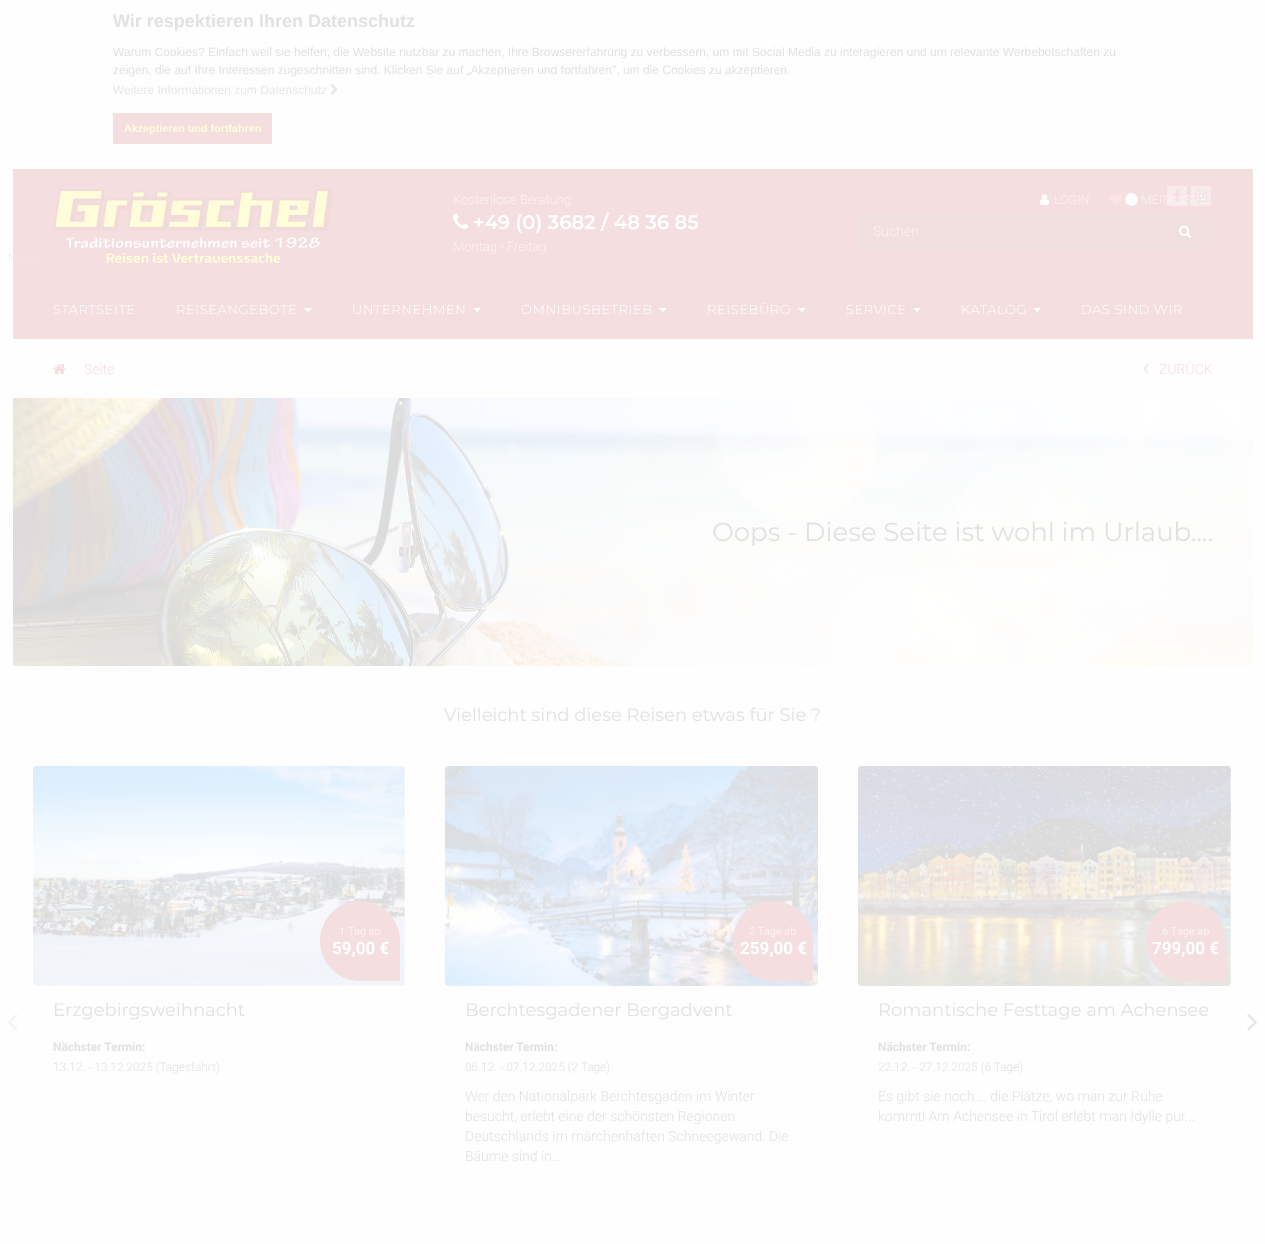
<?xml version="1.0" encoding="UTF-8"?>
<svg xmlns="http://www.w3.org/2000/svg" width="1265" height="1244">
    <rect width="100%" height="100%" fill="#FEFEFE"/>
    <text x="113" y="27" font-family="Liberation Sans" font-size="18" font-weight="700" fill="#E2E2E2">Wir respektieren Ihren Datenschutz</text>
    <text font-family="Liberation Sans" font-size="12" fill="#E2E2E2">
        <tspan x="113" y="56">Warum Cookies? Einfach weil sie helfen, die Website nutzbar zu machen, Ihre Browsererfahrung zu verbessern, um mit Social Media zu interagieren und um relevante Werbebotschaften zu</tspan>
        <tspan x="113" y="74">zeigen, die auf Ihre Interessen zugeschnitten sind. Klicken Sie auf „Akzeptieren und fortfahren", um die Cookies zu akzeptieren.</tspan>
    </text>
    <text x="113" y="94" font-family="Liberation Sans" font-size="12" fill="#E8E8E8">Weitere Informationen zum Datenschutz</text>
    <image x="330" y="83" width="8" height="12" href="img_01.png"/>
    <rect x="113" y="113" width="159" height="31" fill="#F4DEE0"/>
    <text x="124" y="132" font-family="Liberation Sans" font-size="10.75" font-weight="700" fill="#FFFCD9">Akzeptieren und fortfahren</text>
    <rect x="13" y="169" width="1240" height="170" fill="#F4DEE0"/>
    <image x="53" y="189" width="280" height="74" href="img_02.png"/>
    <text x="453" y="204" font-family="Roboto" font-size="13" font-weight="300" fill="#FCF1F2">Kostenlose Beratung</text>
    <image x="453" y="213" width="16" height="16" href="img_03.png"/>
    <text x="473" y="229" font-family="Montserrat" font-size="19.6" font-weight="600" fill="#FFFFFF">+49 (0) 3682 / 48 36 85</text>
    <text x="453" y="251" font-family="Roboto" font-size="13" font-weight="300" fill="#FCF1F2">Montag - Freitag</text>
    <text x="1141" y="204" font-family="Roboto" font-size="12.5" font-weight="300" fill="#FCF1F2">MERKLISTE</text>
    <rect x="1167" y="186" width="20" height="20" fill="#FFFFFF" fill-opacity="0.4"/>
    <image x="1173" y="189" width="8" height="13" href="img_04.png"/>
    <rect x="1191" y="186" width="20" height="20" fill="#FFFFFF" fill-opacity="0.4"/>
    <image x="1195" y="190" width="12" height="12" href="img_05.png"/>
    <image x="1040" y="194" width="9" height="11" href="img_06.png"/>
    <text x="1054" y="204" font-family="Roboto" font-size="12.5" font-weight="300" fill="#FCF1F2">LOGIN</text>
    <rect x="1099" y="191" width="1" height="18" fill="#F5E1E3"/>
    <image x="1110" y="194" width="12" height="11" href="img_07.png"/>
    <circle cx="1131.5" cy="199.5" r="6.5" fill="#FCFCFC"/>
    <rect x="853" y="211" width="360" height="40" rx="4" fill="#F1DEDF"/>
    <text x="873" y="236" font-family="Roboto" font-size="14" font-weight="300" fill="#FCF1F2">Suchen</text>
    <image x="1179" y="225" width="12" height="13" href="img_08.png"/>
    <text x="8" y="261" font-family="Roboto" font-size="11" font-weight="300" fill="#F6E4E6">Name</text>
    <rect x="13" y="278" width="1240" height="1" fill="#F5E1E3"/>
    <text x="53" y="314" font-family="Montserrat" font-size="13" font-weight="300" letter-spacing="0.6" fill="#FFFFFF">STARTSEITE</text>
    <text x="176" y="314" font-family="Montserrat" font-size="13" font-weight="300" letter-spacing="0.6" fill="#FFFFFF">REISEANGEBOTE</text>
    <path d="M 304 308 H 312 L 308 312 Z" fill="#FFFFFF"/>
    <text x="352" y="314" font-family="Montserrat" font-size="13" font-weight="300" letter-spacing="0.6" fill="#FFFFFF">UNTERNEHMEN</text>
    <path d="M 473 308 H 481 L 477 312 Z" fill="#FFFFFF"/>
    <text x="521" y="314" font-family="Montserrat" font-size="13" font-weight="300" letter-spacing="0.6" fill="#FFFFFF">OMNIBUSBETRIEB</text>
    <path d="M 659 308 H 667 L 663 312 Z" fill="#FFFFFF"/>
    <text x="707" y="314" font-family="Montserrat" font-size="13" font-weight="300" letter-spacing="0.6" fill="#FFFFFF">REISEBÜRO</text>
    <path d="M 798 308 H 806 L 802 312 Z" fill="#FFFFFF"/>
    <text x="846" y="314" font-family="Montserrat" font-size="13" font-weight="300" letter-spacing="0.6" fill="#FFFFFF">SERVICE</text>
    <path d="M 913 308 H 921 L 917 312 Z" fill="#FFFFFF"/>
    <text x="961" y="314" font-family="Montserrat" font-size="13" font-weight="300" letter-spacing="0.6" fill="#FFFFFF">KATALOG</text>
    <path d="M 1033 308 H 1041 L 1037 312 Z" fill="#FFFFFF"/>
    <text x="1081" y="314" font-family="Montserrat" font-size="13" font-weight="300" letter-spacing="0.6" fill="#FFFFFF">DAS SIND WIR</text>
    <image x="53" y="364" width="13" height="10" href="img_09.png"/>
    <text x="84" y="374" font-family="Roboto" font-size="14" font-weight="300" fill="#F4DEE0">Seite</text>
    <image x="1143" y="364" width="6" height="10" href="img_10.png"/>
    <text x="1159" y="374" font-family="Roboto" font-size="14" font-weight="300" fill="#F4DEE0">ZURÜCK</text>
    <image x="13" y="398" width="1240" height="268" href="img_11.png"/>
    <text x="712" y="541" font-family="Montserrat" font-size="26" fill="#E2E2E2">Oops - Diese Seite ist wohl im Urlaub....</text>
    <text x="444" y="721" font-family="Montserrat" font-size="18" fill="#E2E2E2">Vielleicht sind diese Reisen etwas für Sie ?</text>
    <image x="33" y="766" width="372" height="220" href="img_12.png"/>
    <path d="M 360 901 C 382 901 400 919 400 941 V 981 H 360 C 338 981 320 963 320 941 C 320 919 338 901 360 901 Z" fill="#F4DEE0"/>
    <text x="339" y="935" font-family="Roboto" font-size="11" fill="#FCF1F2">1 Tag ab</text>
    <text x="332" y="954" font-family="Roboto" font-size="17" font-weight="700" fill="#FFFFFF">59,00 €</text>
    <text x="53" y="1016" font-family="Montserrat" font-size="18" fill="#E2E2E2">Erzgebirgsweihnacht</text>
    <text x="53" y="1051" font-family="Roboto" font-size="11.9" font-weight="700" fill="#E2E2E2">Nächster Termin:</text>
    <text x="53" y="1071" font-family="Roboto" font-size="11.9" font-weight="300" fill="#E2E2E2">13.12. - 13.12.2025 (Tagesfahrt)</text>
    <image x="445" y="766" width="373" height="220" href="img_13.png"/>
    <path d="M 773 901 C 795 901 813 919 813 941 V 981 H 773 C 751 981 733 963 733 941 C 733 919 751 901 773 901 Z" fill="#F4DEE0"/>
    <text x="749" y="935" font-family="Roboto" font-size="11" fill="#FCF1F2">2 Tage ab</text>
    <text x="740" y="954" font-family="Roboto" font-size="17" font-weight="700" fill="#FFFFFF">259,00 €</text>
    <text x="465" y="1016" font-family="Montserrat" font-size="18" fill="#E2E2E2">Berchtesgadener Bergadvent</text>
    <text x="465" y="1051" font-family="Roboto" font-size="11.9" font-weight="700" fill="#E2E2E2">Nächster Termin:</text>
    <text x="465" y="1071" font-family="Roboto" font-size="11.9" font-weight="300" fill="#E2E2E2">06.12. - 07.12.2025 (2 Tage)</text>
    <text font-family="Roboto" font-size="14" font-weight="300" fill="#E2E2E2">
        <tspan x="465" y="1101">Wer den Nationalpark Berchtesgaden im Winter</tspan>
        <tspan x="465" y="1121">besucht, erlebt eine der schönsten Regionen</tspan>
        <tspan x="465" y="1141">Deutschlands im märchenhaften Schneegewand. Die</tspan>
        <tspan x="465" y="1161">Bäume sind in...</tspan>
    </text>
    <image x="858" y="766" width="373" height="220" href="img_14.png"/>
    <path d="M 1186 901 C 1208 901 1226 919 1226 941 V 981 H 1186 C 1164 981 1146 963 1146 941 C 1146 919 1164 901 1186 901 Z" fill="#F4DEE0"/>
    <text x="1162" y="935" font-family="Roboto" font-size="11" fill="#FCF1F2">6 Tage ab</text>
    <text x="1152" y="954" font-family="Roboto" font-size="17" font-weight="700" fill="#FFFFFF">799,00 €</text>
    <text x="878" y="1016" font-family="Montserrat" font-size="18" fill="#E2E2E2">Romantische Festtage am Achensee</text>
    <text x="878" y="1051" font-family="Roboto" font-size="11.9" font-weight="700" fill="#E2E2E2">Nächster Termin:</text>
    <text x="878" y="1071" font-family="Roboto" font-size="11.9" font-weight="300" fill="#E2E2E2">22.12. - 27.12.2025 (6 Tage)</text>
    <text font-family="Roboto" font-size="14" font-weight="300" fill="#E2E2E2">
        <tspan x="878" y="1101">Es gibt sie noch … die Plätze, wo man zur Ruhe</tspan>
        <tspan x="878" y="1121">kommt! Am Achensee in Tirol erlebt man Idylle pur...</tspan>
    </text>
    <image x="7" y="1014" width="11" height="17" href="img_15.png"/>
    <image x="1247" y="1014" width="10" height="17" href="img_16.png"/>
</svg>
